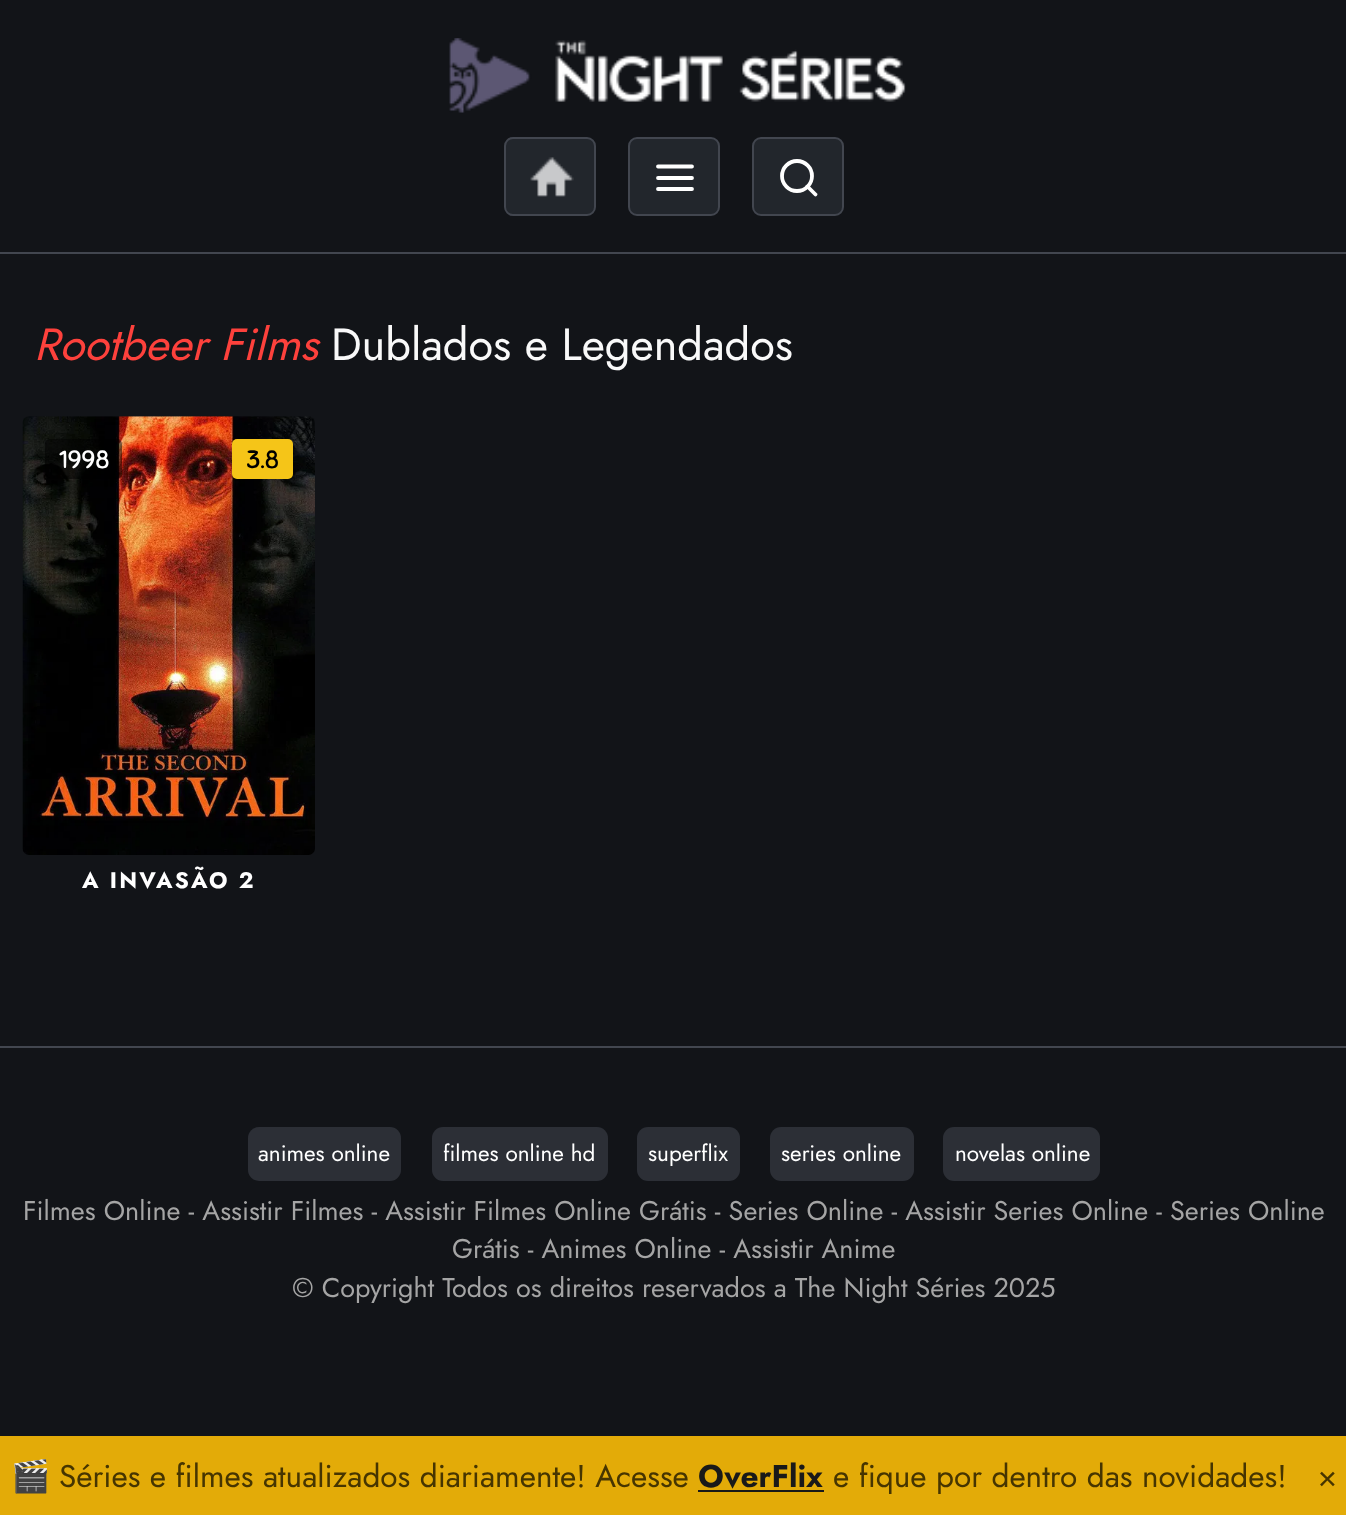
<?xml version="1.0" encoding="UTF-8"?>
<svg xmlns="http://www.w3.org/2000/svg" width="1346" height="1515">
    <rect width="100%" height="100%" fill="#121418"/>
    <rect x="0" y="252" width="1346" height="2" fill="#42464F"/>
    <image x="449" y="38" width="457" height="75" href="img_01.png"/>
    <rect x="505" y="138" width="90" height="77" rx="8" fill="#22262C" stroke="#42464F" stroke-width="2"/>
    <image x="530" y="157" width="44" height="40" href="img_02.png"/>
    <rect x="629" y="138" width="90" height="77" rx="8" fill="#22262C" stroke="#42464F" stroke-width="2"/>
    <path d="M 658 178 H 692 M 658 166.5 H 692 M 658 189 H 692" fill="none" stroke="#FFFFFF" stroke-width="3.8" stroke-linecap="round" stroke-linejoin="round"/>
    <rect x="753" y="138" width="90" height="77" rx="8" fill="#22262C" stroke="#42464F" stroke-width="2"/>
    <circle cx="797" cy="176" r="15" fill="none" stroke="#FFFFFF" stroke-width="3.8"/>
    <path d="M 815.5 194.5 L 807.5 186.5" fill="none" stroke="#FFFFFF" stroke-width="3.8" stroke-linecap="round" stroke-linejoin="round"/>
    <text x="34" y="360" font-family="Jost" font-size="45" font-style="italic" fill="#FD413C">Rootbeer Films</text>
    <text x="331" y="360" font-family="Jost" font-size="45" fill="#F9F9F9">Dublados e Legendados</text>
    <image x="22" y="416" width="293" height="439" href="img_03.png"/>
    <rect x="45" y="439" width="77" height="40" rx="5" fill="#000000" fill-opacity="0.5"/>
    <text x="59" y="468" font-family="Sniglet" font-size="25" fill="#FFFFFF">1998</text>
    <rect x="232" y="439" width="61" height="40" rx="5" fill="#F5C518"/>
    <text x="246" y="468" font-family="Sniglet" font-size="25" fill="#000000">3.8</text>
    <text x="82" y="888" font-family="Jost" font-size="22.5" font-weight="700" letter-spacing="2.25" fill="#FFFFFF">A INVASÃO 2</text>
    <rect x="0" y="1046" width="1346" height="2" fill="#42464F"/>
    <rect x="248" y="1127" width="153" height="54" rx="11" fill="#2C2F36"/>
    <text x="258" y="1161" font-family="Jost" font-size="22.5" fill="#FFFFFF">animes online</text>
    <rect x="432" y="1127" width="176" height="54" rx="11" fill="#2C2F36"/>
    <text x="443" y="1161" font-family="Jost" font-size="22.5" fill="#FFFFFF">filmes online hd</text>
    <rect x="637" y="1127" width="103" height="54" rx="11" fill="#2C2F36"/>
    <text x="648" y="1161" font-family="Jost" font-size="22.5" fill="#FFFFFF">superflix</text>
    <rect x="770" y="1127" width="144" height="54" rx="11" fill="#2C2F36"/>
    <text x="781" y="1161" font-family="Jost" font-size="22.5" fill="#FFFFFF">series online</text>
    <rect x="943" y="1127" width="157" height="54" rx="11" fill="#2C2F36"/>
    <text x="955" y="1161" font-family="Jost" font-size="22.5" fill="#FFFFFF">novelas online</text>
    <text x="23" y="1220" font-family="Jost" font-size="27" fill="#A5A5A5">Filmes Online - Assistir Filmes - Assistir Filmes Online Grátis - Series Online - Assistir Series Online - Series Online</text>
    <text x="452" y="1258" font-family="Jost" font-size="27" fill="#A5A5A5">Grátis - Animes Online - Assistir Anime</text>
    <text x="292" y="1297" font-family="Jost" font-size="27" fill="#A5A5A5">© Copyright Todos os direitos reservados a The Night Séries 2025</text>
    <rect x="0" y="1436" width="1346" height="79" fill="#E3AB08"/>
    <text x="11" y="1487" font-family="Noto Color Emoji" font-size="31.5" fill="#463501">🎬</text>
    <text x="59" y="1487" font-family="Jost" font-size="31.5" fill="#463501">Séries e filmes atualizados diariamente! Acesse</text>
    <text x="698" y="1487" font-family="Jost" font-size="31.5" font-weight="700" fill="#191919">OverFlix</text>
    <rect x="698" y="1490" width="126" height="2" fill="#191919"/>
    <text x="833" y="1487" font-family="Jost" font-size="31.5" fill="#463501">e fique por dentro das novidades!</text>
    <text x="1318" y="1487" font-family="Jost" font-size="31.5" fill="#463501">×</text>
</svg>
